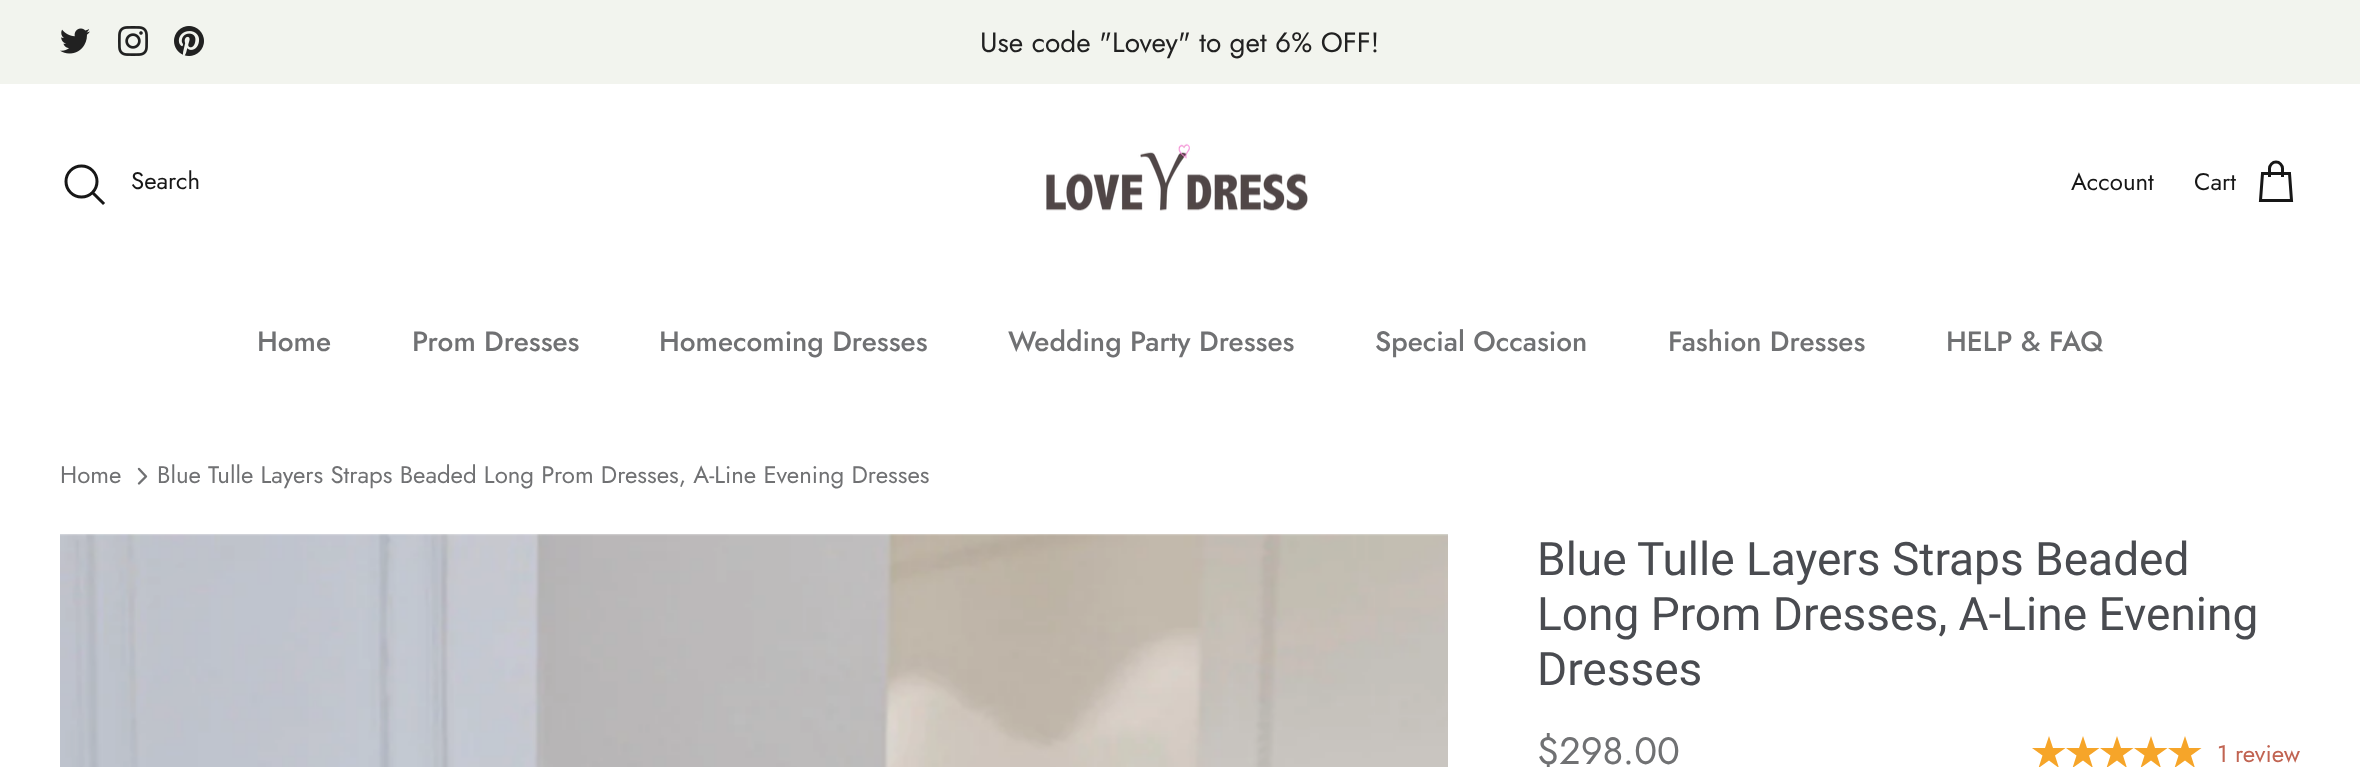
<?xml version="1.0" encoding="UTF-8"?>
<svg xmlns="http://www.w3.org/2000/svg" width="2360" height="767">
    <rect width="100%" height="100%" fill="#FFFFFF"/>
    <rect x="0" y="0" width="2360" height="84" fill="#F2F4EE"/>
    <image x="60" y="28" width="30" height="26" href="img_01.png"/>
    <image x="118" y="26" width="30" height="30" href="img_02.png"/>
    <image x="174" y="26" width="30" height="30" href="img_03.png"/>
    <text x="980" y="52" font-family="Jost" font-size="28" fill="#212121">Use code "Lovey" to get 6% OFF!</text>
    <circle cx="81.5" cy="181.5" r="15.5" fill="none" stroke="#171717" stroke-width="3"/>
    <text x="131" y="189" font-family="Jost" font-size="24" fill="#171717">Search</text>
    <path d="M 94 194 L 103 203" fill="none" stroke="#171717" stroke-width="3" stroke-linecap="square"/>
    <image x="1046" y="143" width="262" height="68" href="img_04.png"/>
    <text x="2071" y="190" font-family="Jost" font-size="24" fill="#171717">Account</text>
    <text x="2194" y="190" font-family="Jost" font-size="24" fill="#171717">Cart</text>
    <path d="M 2282.5 177 V 168.5 C 2282.5 165 2279.5 162 2276 162 C 2272.5 162 2269.5 165 2269.5 168.5 V 177 M 2262.5 173.5 H 2289.5 L 2291.5 200.5 H 2260.5 Z" fill="none" stroke="#171717" stroke-width="3"/>
    <text x="257" y="351" font-family="Jost" font-size="28" font-weight="500" fill="#707173">Home</text>
    <text x="412" y="351" font-family="Jost" font-size="28" font-weight="500" fill="#707173">Prom Dresses</text>
    <text x="659" y="351" font-family="Jost" font-size="28" font-weight="500" fill="#707173">Homecoming Dresses</text>
    <text x="1008" y="351" font-family="Jost" font-size="28" font-weight="500" fill="#707173">Wedding Party Dresses</text>
    <text x="1375" y="351" font-family="Jost" font-size="28" font-weight="500" fill="#707173">Special Occasion</text>
    <text x="1668" y="351" font-family="Jost" font-size="28" font-weight="500" fill="#707173">Fashion Dresses</text>
    <text x="1946" y="351" font-family="Jost" font-size="28" font-weight="500" fill="#707173">HELP &amp; FAQ</text>
    <text x="60" y="483" font-family="Jost" font-size="24" fill="#707173">Home</text>
    <path d="M 139 483.5 L 146 476.5 L 139 469" fill="none" stroke="#707173" stroke-width="2.4" stroke-linecap="round" stroke-linejoin="round"/>
    <text x="157" y="483" font-family="Jost" font-size="24" fill="#707173">Blue Tulle Layers Straps Beaded Long Prom Dresses, A-Line Evening Dresses</text>
    <image x="60" y="534" width="1388" height="233" href="img_05.png"/>
    <text font-family="Roboto" font-size="46" fill="#494B50">
        <tspan x="1537" y="575">Blue Tulle Layers Straps Beaded</tspan>
        <tspan x="1537" y="630">Long Prom Dresses, A-Line Evening</tspan>
        <tspan x="1537" y="685">Dresses</tspan>
    </text>
    <text x="1537" y="764" font-family="Jost" font-size="38" fill="#707173">$298.00</text>
    <path d="M 2053 748 H 2065.5 L 2055 755.5 L 2059 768 L 2049 760.5 L 2038.5 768 L 2042.5 755.5 L 2032 748 H 2045 L 2049 736 Z" fill="#F6A529" fill-rule="evenodd"/>
    <path d="M 2087 748 H 2099.5 L 2089 755.5 L 2093 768 L 2083 760.5 L 2072.5 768 L 2076.5 755.5 L 2066 748 H 2079 L 2083 736 Z" fill="#F6A529" fill-rule="evenodd"/>
    <path d="M 2121 748 H 2133.5 L 2123 755.5 L 2127 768 L 2117 760.5 L 2106.5 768 L 2110.5 755.5 L 2100 748 H 2113 L 2117 736 Z" fill="#F6A529" fill-rule="evenodd"/>
    <path d="M 2155 748 H 2167.5 L 2157 755.5 L 2161 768 L 2151 760.5 L 2140.5 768 L 2144.5 755.5 L 2134 748 H 2147 L 2151 736 Z" fill="#F6A529" fill-rule="evenodd"/>
    <path d="M 2189 748 H 2201.5 L 2191 755.5 L 2195 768 L 2185 760.5 L 2174.5 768 L 2178.5 755.5 L 2168 748 H 2181 L 2185 736 Z" fill="#F6A529" fill-rule="evenodd"/>
    <text x="2217" y="762" font-family="Jost" font-size="24" fill="#C16452">1 review</text>
</svg>
